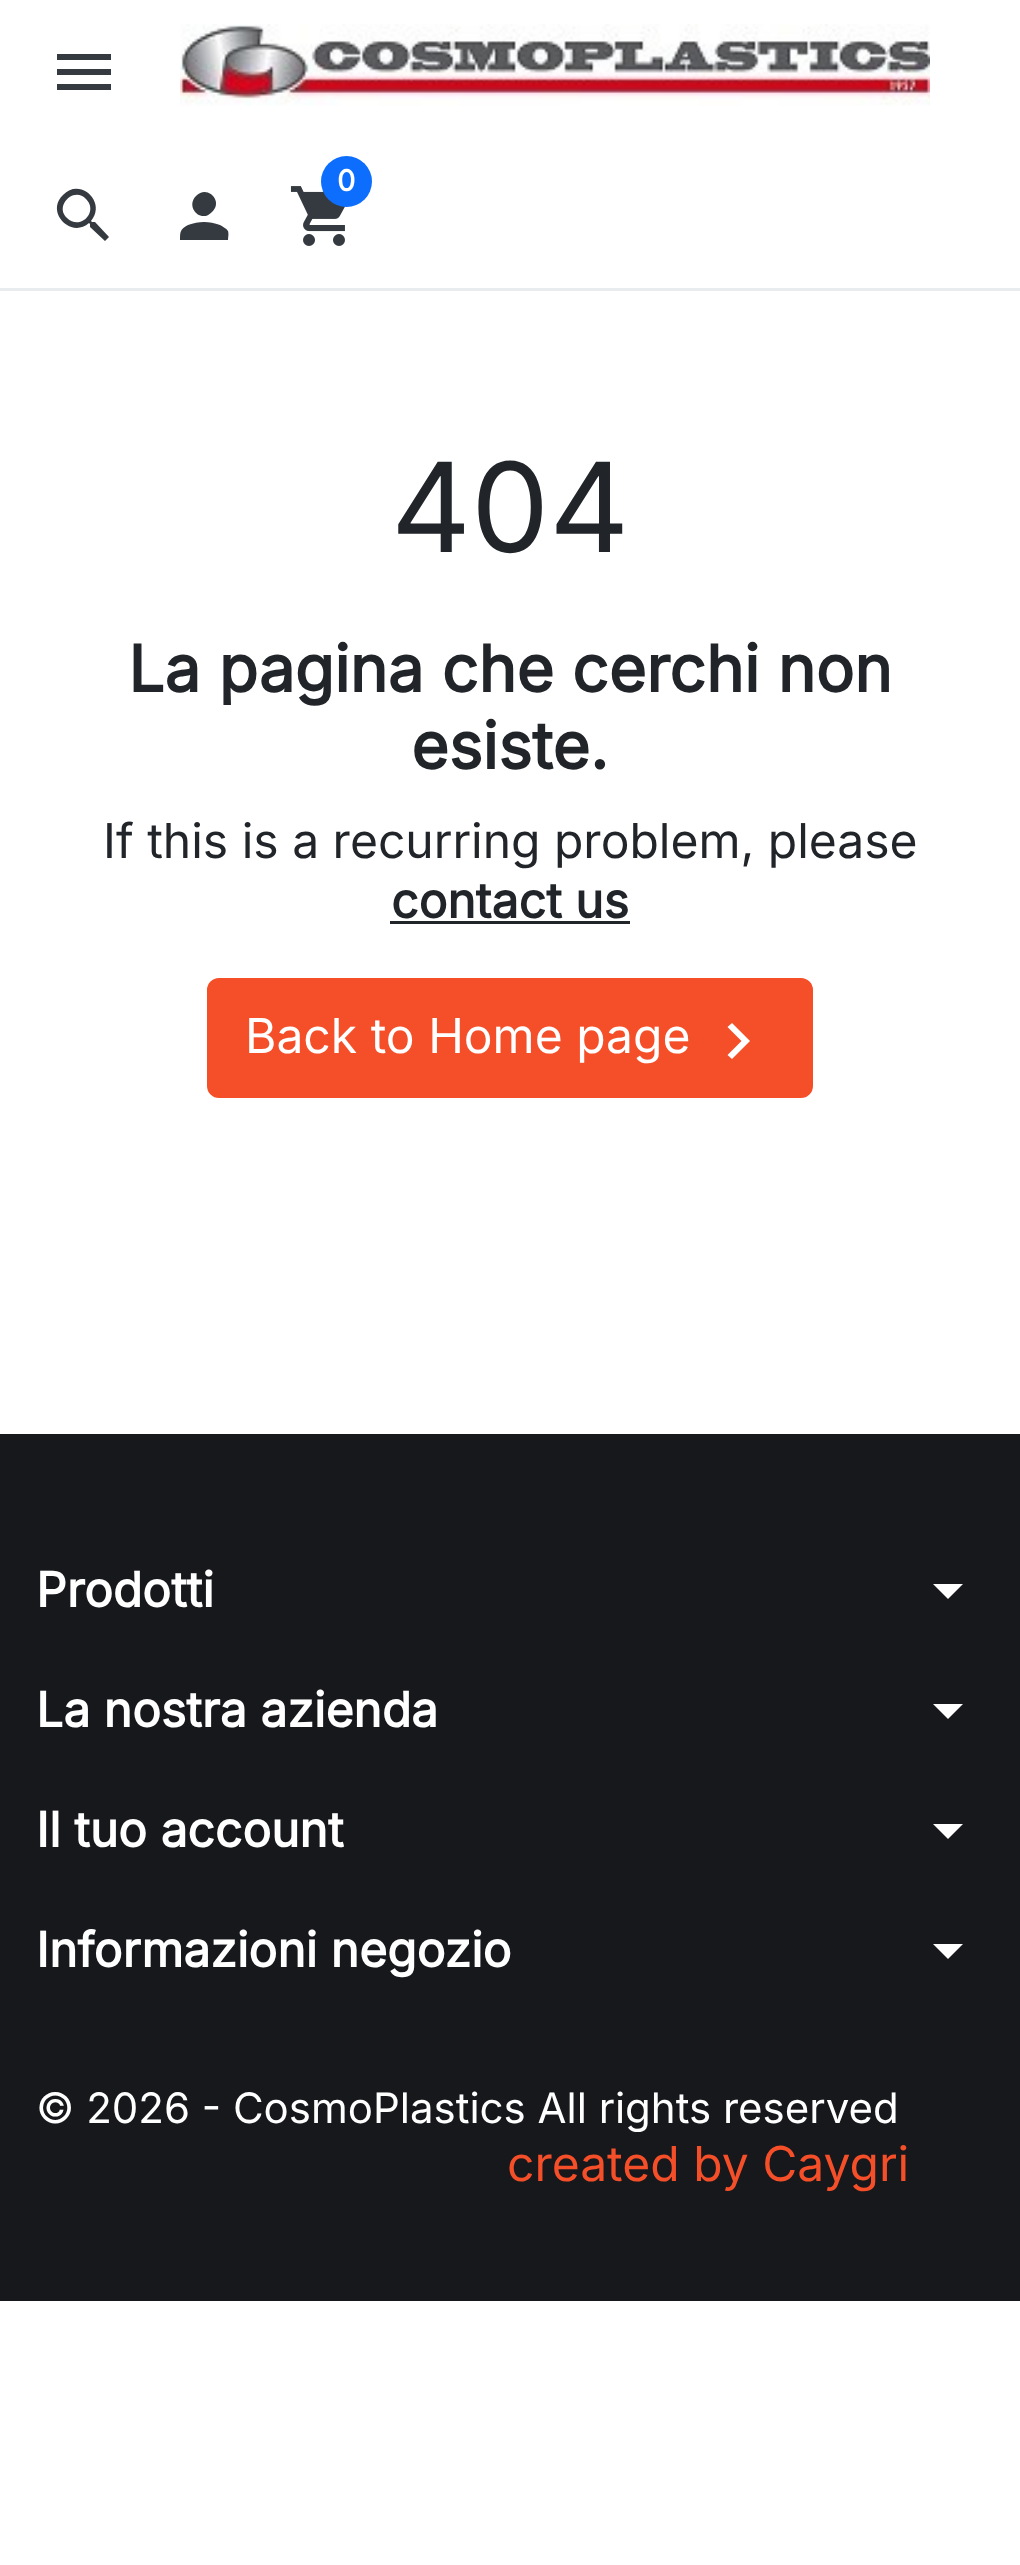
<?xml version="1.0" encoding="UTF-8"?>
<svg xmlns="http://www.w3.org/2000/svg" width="1020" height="2565">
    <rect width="100%" height="100%" fill="#FFFFFF"/>
    <rect x="0" y="288" width="1020" height="3" fill="#E9ECEF"/>
    <path d="M 57 54 H 111 V 60 H 57 Z M 57 75 V 69 H 111 V 75 Z M 57 90 V 84 H 111 V 90 Z" fill="#343A40"/>
    <image x="180" y="24" width="750" height="82" href="img_01.png"/>
    <image x="290" y="186" width="56" height="60" href="img_02.png"/>
    <circle cx="346.5" cy="181.5" r="25.5" fill="#0D6EFD"/>
    <text x="337" y="191" font-family="Inter" font-size="29" font-weight="700" fill="#FFFFFF">0</text>
    <path d="M 67 218 C 80 231 99 212 86 199 C 74 186 54 206 67 218 Z M 95 222 L 109 237 L 105 241 L 90 227 V 224 L 89 223 C 71 239 45 212 63 195 C 80 177 107 202 91 221 L 92 222 Z" fill="#343A40"/>
    <path d="M 188 225 C 199 221 209 221 220 225 C 223 227 226 228 228 231 C 229 234 228 237 228 240 H 180 C 180 232 180 229 188 225 Z M 212 212 C 201 224 185 207 196 196 C 207 184 224 201 212 212 Z" fill="#343A40"/>
    <text x="391" y="552" font-family="Inter" font-size="124" fill="#212529">404</text>
    <text x="128" y="692" font-family="Inter" font-size="64.25" font-weight="700" fill="#212529">La pagina che cerchi non</text>
    <text x="411" y="769" font-family="Inter" font-size="64.25" font-weight="700" fill="#212529">esiste.</text>
    <text x="103" y="858" font-family="Inter" font-size="48" fill="#212529">If this is a recurring problem, please</text>
    <text x="391" y="918" font-family="Inter" font-size="48" font-weight="700" fill="#212529">contact us</text>
    <rect x="390" y="921" width="240" height="3" fill="#212529"/>
    <rect x="208.5" y="979.5" width="603" height="117" rx="10.5" fill="#F54F29" stroke="#F54F29" stroke-width="3"/>
    <text x="245" y="1053" font-family="Inter" font-size="48" fill="#FFFFFF">Back to Home page</text>
    <path d="M 727.5 1055 L 741.5 1041 L 727.5 1027 L 732 1023 L 750 1041 L 732 1059 Z" fill="#FFFFFF"/>
    <rect x="0" y="1434" width="1020" height="867" fill="#16181C"/>
    <text x="36" y="1607" font-family="Inter" font-size="48" font-weight="700" fill="#FFFFFF">Prodotti</text>
    <path d="M 933 1584 H 963 L 948 1599 Z" fill="#FFFFFF"/>
    <text x="36" y="1727" font-family="Inter" font-size="48" font-weight="700" fill="#FFFFFF">La nostra azienda</text>
    <path d="M 933 1704 H 963 L 948 1719 Z" fill="#FFFFFF"/>
    <text x="36" y="1847" font-family="Inter" font-size="48" font-weight="700" fill="#FFFFFF">Il tuo account</text>
    <path d="M 933 1824 H 963 L 948 1839 Z" fill="#FFFFFF"/>
    <text x="36" y="1967" font-family="Inter" font-size="48" font-weight="700" fill="#FFFFFF">Informazioni negozio</text>
    <path d="M 933 1944 H 963 L 948 1959 Z" fill="#FFFFFF"/>
    <text x="36" y="2123" font-family="Inter" font-size="42" fill="#FFFFFF">© 2026 - CosmoPlastics All rights reserved</text>
    <text x="507" y="2181" font-family="Inter" font-size="48" fill="#F54F29">created by Caygri</text>
</svg>
